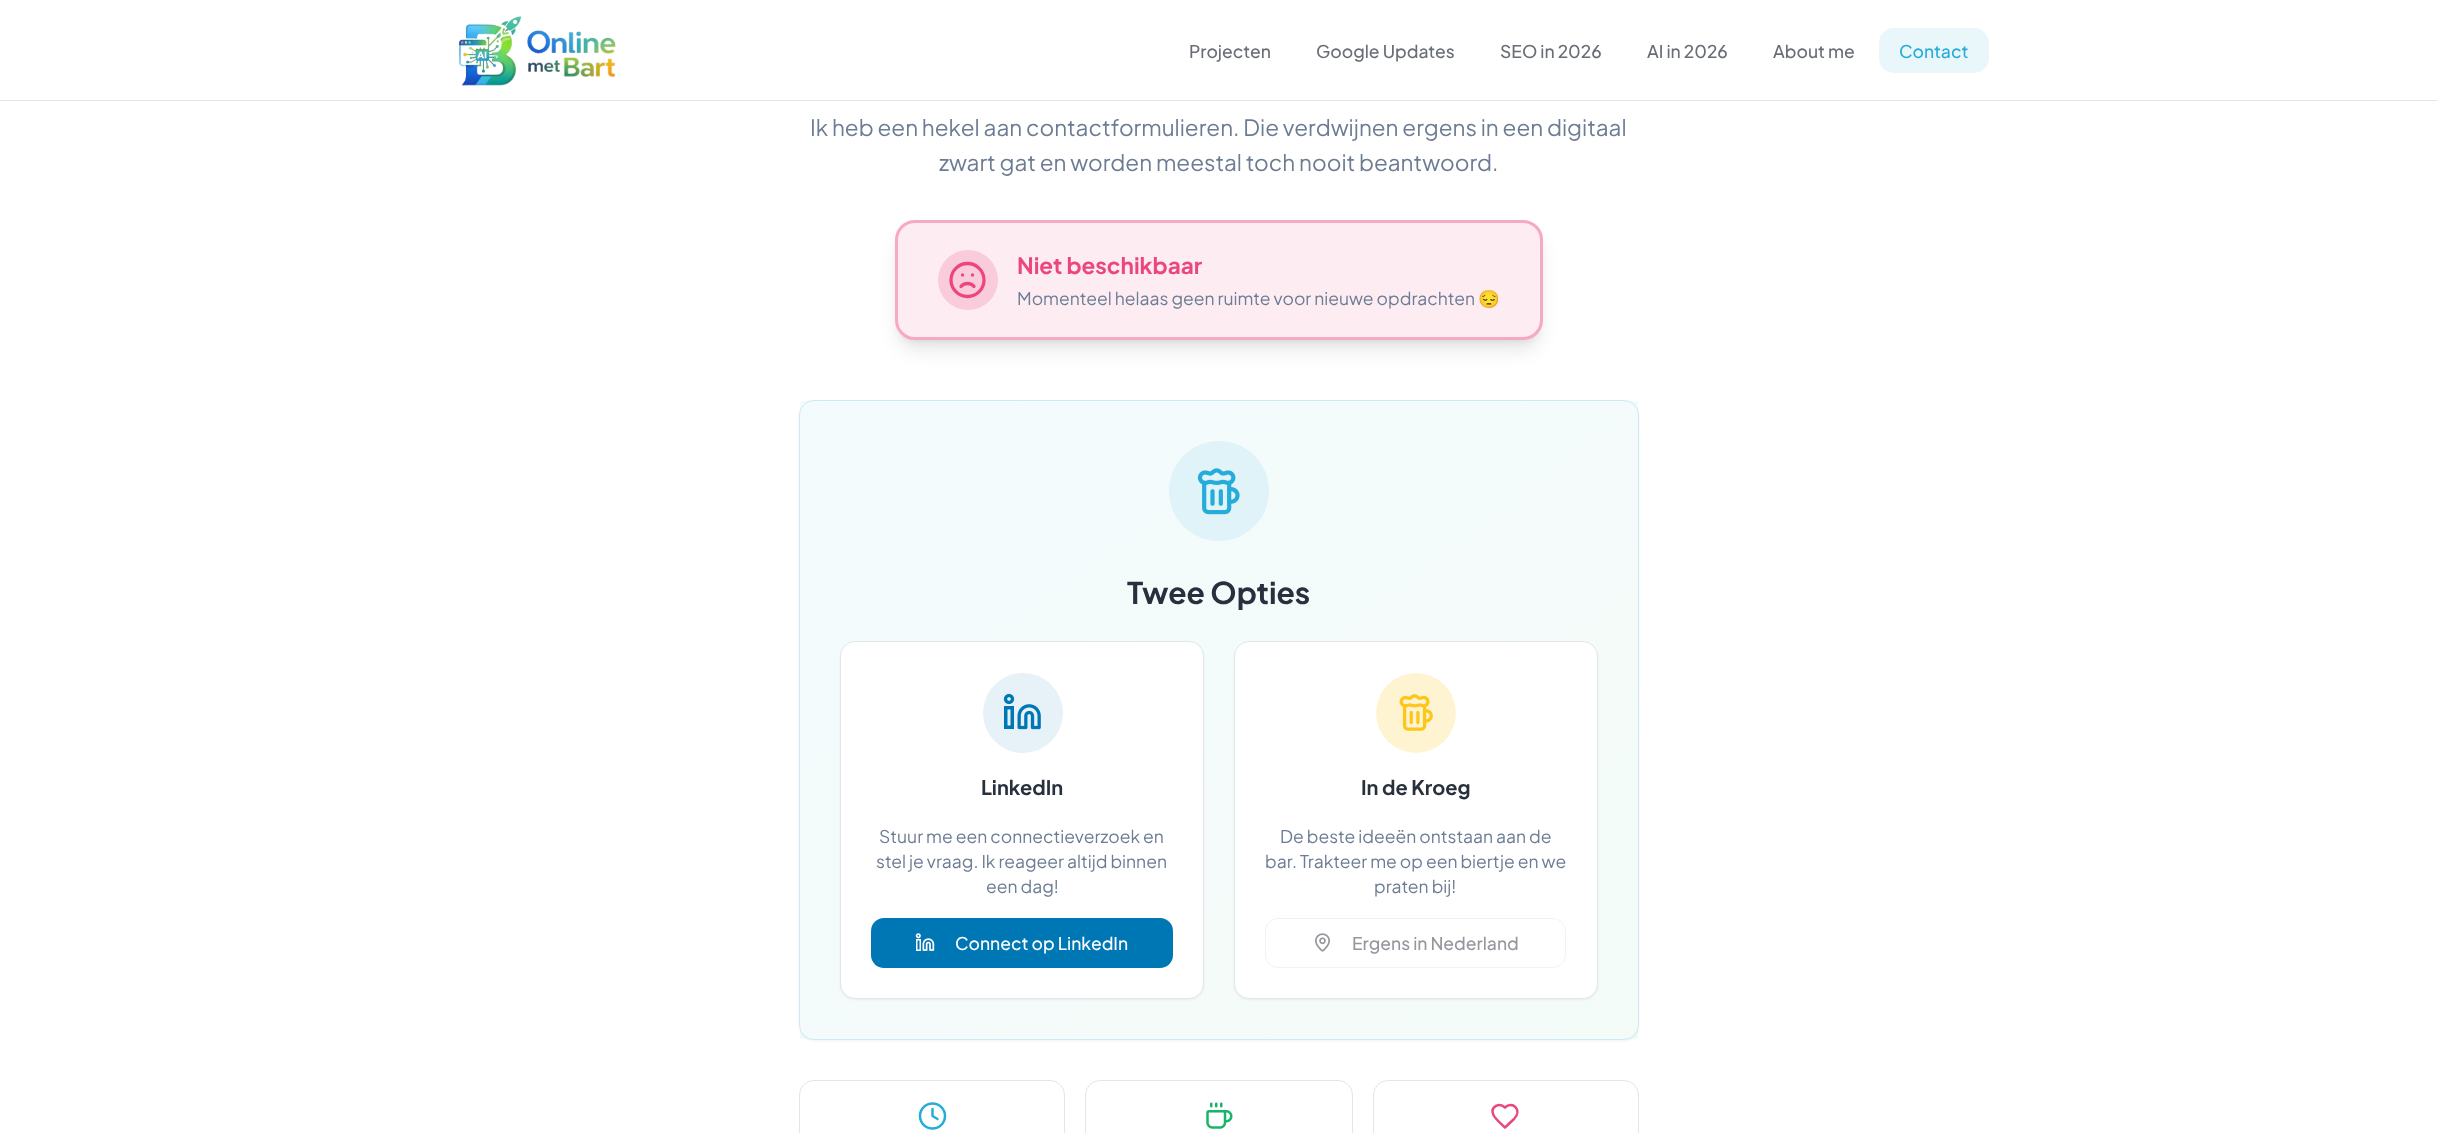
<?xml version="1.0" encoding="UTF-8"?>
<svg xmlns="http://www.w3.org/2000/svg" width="2437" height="1133">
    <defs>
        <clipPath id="clip1"><path d="M 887 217 H 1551 V 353 H 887 Z M 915 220 H 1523 C 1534 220 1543 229 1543 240 V 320 C 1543 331 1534 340 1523 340 H 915 C 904 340 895 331 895 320 V 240 C 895 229 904 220 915 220 Z" clip-rule="evenodd"/></clipPath>
        <filter id="blur1" x="-50%" y="-200%" width="200%" height="500%"><feGaussianBlur stdDeviation="4"/></filter>
        <clipPath id="clip2"><path d="M 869 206 H 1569 V 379 H 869 Z M 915 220 H 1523 C 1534 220 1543 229 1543 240 V 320 C 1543 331 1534 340 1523 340 H 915 C 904 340 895 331 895 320 V 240 C 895 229 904 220 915 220 Z" clip-rule="evenodd"/></clipPath>
        <filter id="blur2" x="-50%" y="-200%" width="200%" height="500%"><feGaussianBlur stdDeviation="9.5"/></filter>
        <filter id="blur3" x="-50%" y="-200%" width="200%" height="500%"><feGaussianBlur stdDeviation="1"/></filter>
        <clipPath id="clip3"><rect x="799" y="400" width="840" height="640" rx="15"/></clipPath>
        <linearGradient id="g1" gradientUnits="userSpaceOnUse" x1="912" y1="-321" x2="1526" y2="486"><stop offset="0" stop-color="#F4FBFD"/><stop offset="1" stop-color="#F4FBF8"/></linearGradient>
        <linearGradient id="g2" gradientUnits="userSpaceOnUse" x1="74" y1="316" x2="688" y2="1124"><stop offset="0" stop-color="#F4FBFD"/><stop offset="1" stop-color="#F4FBF8"/></linearGradient>
        <linearGradient id="g3" gradientUnits="userSpaceOnUse" x1="912" y1="316" x2="1526" y2="1124"><stop offset="0" stop-color="#26ACD9" stop-opacity="0.05"/><stop offset="1" stop-color="#1AB36B" stop-opacity="0.05"/></linearGradient>
        <linearGradient id="g4" gradientUnits="userSpaceOnUse" x1="1749" y1="316" x2="2363" y2="1124"><stop offset="0" stop-color="#F4FBFD"/><stop offset="1" stop-color="#F4FBF8"/></linearGradient>
        <linearGradient id="g5" gradientUnits="userSpaceOnUse" x1="912" y1="954" x2="1526" y2="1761"><stop offset="0" stop-color="#26ACD9" stop-opacity="0.05"/><stop offset="1" stop-color="#1AB36B" stop-opacity="0.05"/></linearGradient>
    </defs>
    <rect width="100%" height="100%" fill="#FFFFFF"/>
    <rect x="0" y="100" width="2437" height="1" fill="#E0E6EB"/>
    <image x="459" y="16" width="157" height="70" href="img_01.png"/>
    <text x="1189" y="58" font-family="Plus Jakarta Sans" font-size="17.5" font-weight="500" fill="#686D76">Projecten</text>
    <text x="1316" y="58" font-family="Plus Jakarta Sans" font-size="17.5" font-weight="500" fill="#686D76">Google Updates</text>
    <text x="1500" y="58" font-family="Plus Jakarta Sans" font-size="17.5" font-weight="500" fill="#686D76">SEO in 2026</text>
    <text x="1647" y="58" font-family="Plus Jakarta Sans" font-size="17.5" font-weight="500" fill="#686D76">AI in 2026</text>
    <text x="1773" y="58" font-family="Plus Jakarta Sans" font-size="17.5" font-weight="500" fill="#686D76">About me</text>
    <rect x="1879" y="28" width="110" height="45" rx="15" fill="#E9F7FB"/>
    <text x="1899" y="58" font-family="Plus Jakarta Sans" font-size="17.5" font-weight="500" fill="#26ACD9">Contact</text>
    <text x="810" y="136" font-family="Plus Jakarta Sans" font-size="22.5" fill="#6C7C93">Ik heb een hekel aan contactformulieren. Die verdwijnen ergens in een digitaal</text>
    <text x="939" y="171" font-family="Plus Jakarta Sans" font-size="22.5" fill="#6C7C93">zwart gat en worden meestal toch nooit beantwoord.</text>
    <g clip-path="url(#clip1)">
        <rect x="900" y="230" width="638" height="110" rx="15" fill="#000000" fill-opacity="0.1" filter="url(#blur1)"/>
    </g>
    <g clip-path="url(#clip2)">
        <rect x="899" y="236" width="640" height="113" rx="16" fill="#000000" fill-opacity="0.1" filter="url(#blur2)"/>
    </g>
    <rect x="895" y="220" width="648" height="120" rx="20" fill="#EB477E" fill-opacity="0.1"/>
    <rect x="896.5" y="221.5" width="645" height="117" rx="18.5" fill="none" stroke="#EB477E" stroke-opacity="0.4" stroke-width="3"/>
    <circle cx="968" cy="280" r="30" fill="#F9CBDB"/>
    <circle cx="967.5" cy="280" r="16.5" fill="none" stroke="#EB477E" stroke-width="3.3"/>
    <path d="M 974 286.5 C 971 282.5 964 282.5 961 286.5 M 962.5 275 H 962.5 M 972.5 275 H 972.5" fill="none" stroke="#EB477E" stroke-width="3.3" stroke-linecap="round" stroke-linejoin="round"/>
    <text x="1017" y="274" font-family="Plus Jakarta Sans" font-size="22.5" font-weight="700" fill="#EB477E">Niet beschikbaar</text>
    <text x="1017" y="305" font-family="Plus Jakarta Sans" font-size="17.5" fill="#6C7C93">Momenteel helaas geen ruimte voor nieuwe opdrachten</text>
    <text x="1478" y="305" font-family="Noto Color Emoji" font-size="17.5" fill="#6C7C93">😔</text>
    <rect x="799" y="401" width="840" height="640" rx="15" fill="#000000" fill-opacity="0.05" filter="url(#blur3)"/>
    <rect x="799" y="400" width="840" height="640" rx="15" fill="#FFFFFF"/>
    <g clip-path="url(#clip3)">
        <rect x="809" y="400" width="820" height="1" fill="url(#g1)"/>
        <rect x="799" y="410" width="1" height="620" fill="url(#g2)"/>
    </g>
    <rect x="800" y="401" width="838" height="638" fill="url(#g3)"/>
    <g clip-path="url(#clip3)">
        <rect x="1638" y="410" width="1" height="620" fill="url(#g4)"/>
    </g>
    <rect x="810" y="1039" width="818" height="1" fill="url(#g5)"/>
    <rect x="799.5" y="400.5" width="839" height="639" rx="14.5" fill="none" stroke="#26ACD9" stroke-opacity="0.2"/>
    <circle cx="1219" cy="491" r="50" fill="#DFF3F8"/>
    <image x="1197" y="468" width="43" height="47" href="img_02.png"/>
    <text x="1127" y="604" font-family="Plus Jakarta Sans" font-size="30" font-weight="700" fill="#29303D">Twee Opties</text>
    <rect x="840" y="643" width="364" height="357" rx="15" fill="#000000" fill-opacity="0.05" filter="url(#blur3)"/>
    <rect x="840.5" y="641.5" width="363" height="357" rx="14.5" fill="#FFFFFF" stroke="#E0E6EB"/>
    <circle cx="1023" cy="713" r="40" fill="#E6F1F8"/>
    <image x="1003" y="693" width="38" height="37" href="img_03.png"/>
    <text x="981" y="795" font-family="Plus Jakarta Sans" font-size="20" font-weight="700" fill="#29303D">LinkedIn</text>
    <text x="879" y="843" font-family="Plus Jakarta Sans" font-size="17.5" fill="#6C7C93">Stuur me een connectieverzoek en</text>
    <text x="876" y="868" font-family="Plus Jakarta Sans" font-size="17.5" fill="#6C7C93">stel je vraag. Ik reageer altijd binnen</text>
    <text x="986" y="893" font-family="Plus Jakarta Sans" font-size="17.5" fill="#6C7C93">een dag!</text>
    <rect x="871" y="918" width="302" height="50" rx="13" fill="#0077B5"/>
    <image x="915" y="933" width="20" height="18" href="img_04.png"/>
    <text x="955" y="950" font-family="Plus Jakarta Sans" font-size="17.5" font-weight="500" fill="#FFFFFF">Connect op LinkedIn</text>
    <rect x="1234" y="643" width="364" height="357" rx="15" fill="#000000" fill-opacity="0.05" filter="url(#blur3)"/>
    <rect x="1234.5" y="641.5" width="363" height="357" rx="14.5" fill="#FFFFFF" stroke="#E0E6EB"/>
    <circle cx="1416" cy="713" r="40" fill="#FFF4D1"/>
    <image x="1399" y="694" width="34" height="37" href="img_05.png"/>
    <text x="1361" y="795" font-family="Plus Jakarta Sans" font-size="20" font-weight="700" fill="#29303D">In de Kroeg</text>
    <text x="1280" y="843" font-family="Plus Jakarta Sans" font-size="17.5" fill="#6C7C93">De beste ideeën ontstaan aan de</text>
    <text x="1265" y="868" font-family="Plus Jakarta Sans" font-size="17.5" fill="#6C7C93">bar. Trakteer me op een biertje en we</text>
    <text x="1374" y="893" font-family="Plus Jakarta Sans" font-size="17.5" fill="#6C7C93">praten bij!</text>
    <rect x="1265.5" y="918.5" width="300" height="49" rx="12.5" fill="none" stroke="#F0F3F5"/>
    <image x="1315" y="933" width="15" height="19" href="img_06.png"/>
    <text x="1352" y="950" font-family="Plus Jakarta Sans" font-size="17.5" font-weight="500" fill="#94989E">Ergens in Nederland</text>
    <rect x="799.5" y="1080.5" width="265" height="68" rx="14.5" fill="none" stroke="#E0E6EB"/>
    <circle cx="932.5" cy="1116" r="12.5" fill="none" stroke="#26ACD9" stroke-width="2.5"/>
    <path d="M 932.5 1109 V 1116 L 937.5 1119" fill="none" stroke="#26ACD9" stroke-width="2.5" stroke-linecap="round" stroke-linejoin="round"/>
    <rect x="1085.5" y="1080.5" width="267" height="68" rx="14.5" fill="none" stroke="#E0E6EB"/>
    <image x="1206" y="1102" width="27" height="27" href="img_07.png"/>
    <rect x="1373.5" y="1080.5" width="265" height="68" rx="14.5" fill="none" stroke="#E0E6EB"/>
    <path d="M 1514 1119 C 1523 1109.5 1512 1100.5 1505 1107.5 C 1499.5 1102 1490.5 1106.5 1493 1114 C 1494 1118 1502 1124.5 1505 1127.5 Z" fill="none" stroke="#EB477E" stroke-width="2.5" stroke-linecap="round" stroke-linejoin="round"/>
</svg>
